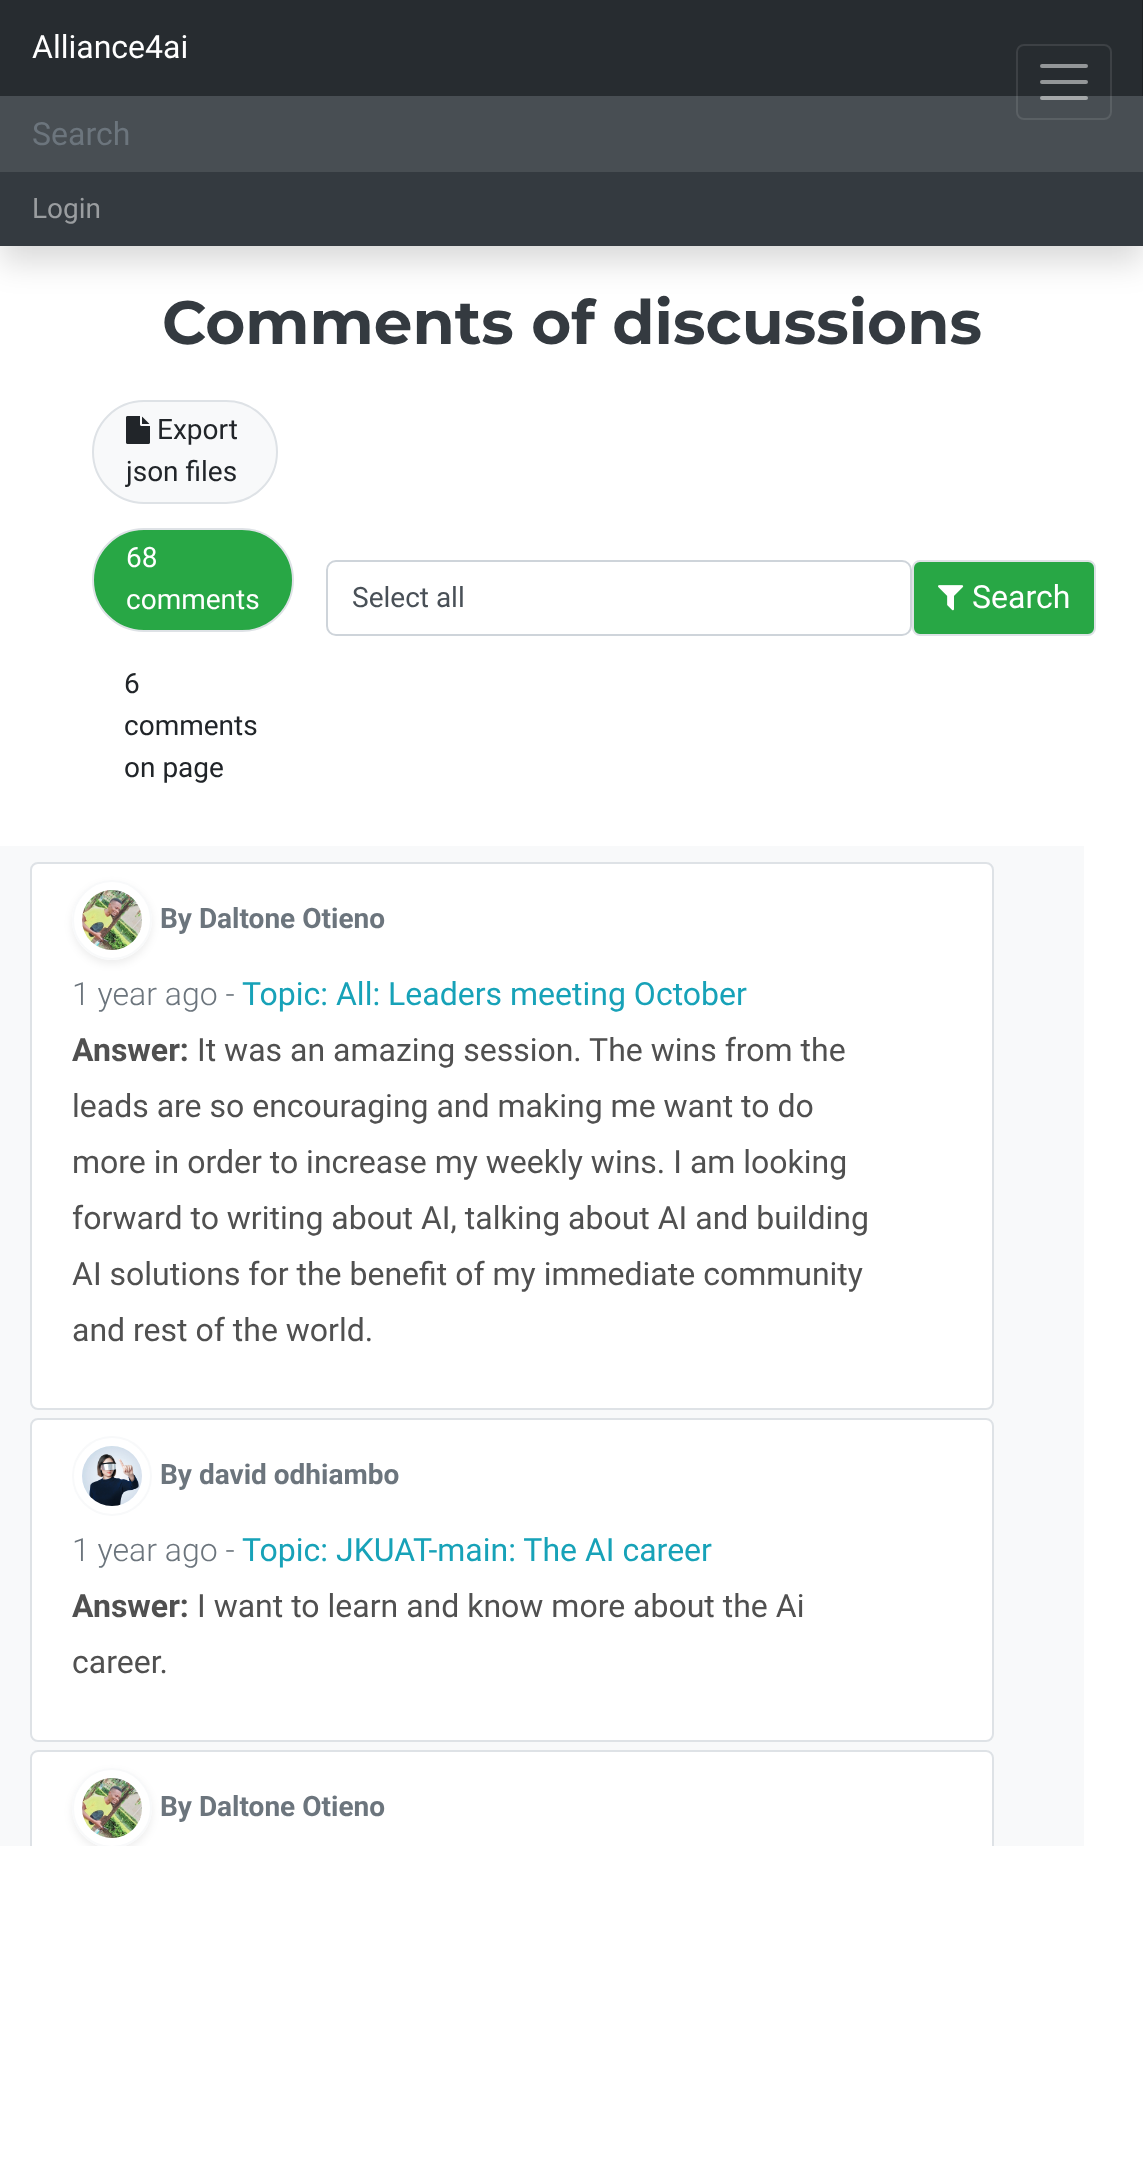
<?xml version="1.0" encoding="UTF-8"?>
<svg xmlns="http://www.w3.org/2000/svg" width="1143" height="2161">
    <defs>
        <filter id="blur1" x="-50%" y="-200%" width="200%" height="500%"><feGaussianBlur stdDeviation="16"/></filter>
        <clipPath id="clip1"><path d="M 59 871 H 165 V 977 H 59 Z M 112 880 C 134 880 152 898 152 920 C 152 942 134 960 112 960 C 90 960 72 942 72 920 C 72 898 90 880 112 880 Z" clip-rule="evenodd"/></clipPath>
        <filter id="blur2" x="-50%" y="-200%" width="200%" height="500%"><feGaussianBlur stdDeviation="4"/></filter>
        <clipPath id="clip2"><rect x="0" y="846" width="1084" height="1000"/></clipPath>
        <clipPath id="clip3"><rect x="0" y="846" width="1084" height="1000"/></clipPath>
        <clipPath id="clip4"><path d="M 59 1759 H 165 V 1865 H 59 Z M 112 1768 C 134 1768 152 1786 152 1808 C 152 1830 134 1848 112 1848 C 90 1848 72 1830 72 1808 C 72 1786 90 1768 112 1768 Z" clip-rule="evenodd"/></clipPath>
    </defs>
    <rect width="100%" height="100%" fill="#FFFFFF"/>
    <rect x="0" y="16" width="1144" height="246" fill="#000000" fill-opacity="0.15" filter="url(#blur1)"/>
    <rect x="0" y="172" width="1143" height="74" fill="#343A40"/>
    <rect x="0" y="0" width="1142" height="96" fill="#272C30"/>
    <rect x="1142" y="0" width="1" height="96" fill="#1D2124"/>
    <text x="32" y="58" font-family="Roboto" font-size="32" fill="#FFFFFF">Alliance4ai</text>
    <rect x="0" y="96" width="1143" height="76" fill="#484E53"/>
    <rect x="1017" y="45" width="94" height="74" rx="7" fill="none" stroke="#FFFFFF" stroke-opacity="0.1" stroke-width="2"/>
    <path d="M 1042 66 H 1086 M 1042 82 H 1086 M 1042 98 H 1086" fill="none" stroke="#FFFFFF" stroke-opacity="0.5" stroke-width="4" stroke-linecap="round"/>
    <text x="32" y="145" font-family="Roboto" font-size="32" fill="#6C757D">Search</text>
    <text x="32" y="218" font-family="Roboto" font-size="28" fill="#9A9DA0">Login</text>
    <text x="162" y="344" font-family="Montserrat" font-size="61.2" font-weight="700" fill="#343A40">Comments of discussions</text>
    <rect x="93" y="401" width="184" height="102" rx="51" fill="#F8F9FA" stroke="#DEE2E6" stroke-width="2"/>
    <image x="126" y="416" width="24" height="28" href="img_01.png"/>
    <text x="157" y="439" font-family="Roboto" font-size="28" fill="#212529">Export</text>
    <text x="126" y="481" font-family="Roboto" font-size="28" fill="#212529">json files</text>
    <rect x="93" y="529" width="200" height="102" rx="51" fill="#28A745" stroke="#DEE2E6" stroke-width="2"/>
    <text font-family="Roboto" font-size="28" fill="#FFFFFF">
        <tspan x="126" y="567">68</tspan>
        <tspan x="126" y="609">comments</tspan>
    </text>
    <text font-family="Roboto" font-size="28" fill="#212529">
        <tspan x="124" y="693">6</tspan>
        <tspan x="124" y="735">comments</tspan>
        <tspan x="124" y="777">on page</tspan>
    </text>
    <rect x="327" y="561" width="584" height="74" rx="9" fill="none" stroke="#CED4DA" stroke-width="2"/>
    <text x="352" y="607" font-family="Roboto" font-size="28" fill="#495057">Select all</text>
    <rect x="913" y="561" width="182" height="74" rx="7" fill="#28A745" stroke="#DEE2E6" stroke-width="2"/>
    <image x="938" y="585" width="26" height="26" href="img_02.png"/>
    <text x="972" y="608" font-family="Roboto" font-size="32" fill="#FFFFFF">Search</text>
    <rect x="0" y="846" width="1084" height="1000" fill="#F8F9FA"/>
    <rect x="31" y="863" width="962" height="546" rx="7" fill="#FFFFFF" stroke="#DEE2E6" stroke-width="2"/>
    <g clip-path="url(#clip1)">
        <rect x="72" y="884" width="80" height="80" rx="40" fill="#000000" fill-opacity="0.07" filter="url(#blur2)"/>
    </g>
    <circle cx="112" cy="920" r="39" fill="none" stroke="#F8F9FA" stroke-width="2"/>
    <image x="82" y="890" width="60" height="60" href="img_03.png"/>
    <text x="160" y="928" font-family="Roboto" font-size="28" font-weight="700" fill="#6C757D">By Daltone Otieno</text>
    <text x="72" y="1005" font-family="Roboto" font-size="32" font-weight="300" fill="#6C757D">1 year ago -</text>
    <text x="242" y="1005" font-family="Roboto" font-size="32" fill="#17A2B8">Topic: All: Leaders meeting October</text>
    <text x="72" y="1061" font-family="Roboto" font-size="32" font-weight="700" fill="#505050">Answer:</text>
    <text x="197" y="1061" font-family="Roboto" font-size="32" fill="#505050">It was an amazing session. The wins from the</text>
    <text font-family="Roboto" font-size="32" fill="#505050">
        <tspan x="72" y="1117">leads are so encouraging and making me want to do</tspan>
        <tspan x="72" y="1173">more in order to increase my weekly wins. I am looking</tspan>
        <tspan x="72" y="1229">forward to writing about AI, talking about AI and building</tspan>
        <tspan x="72" y="1285">AI solutions for the benefit of my immediate community</tspan>
        <tspan x="72" y="1341">and rest of the world.</tspan>
    </text>
    <rect x="31" y="1419" width="962" height="322" rx="7" fill="#FFFFFF" stroke="#DEE2E6" stroke-width="2"/>
    <circle cx="112" cy="1476" r="39" fill="none" stroke="#F8F9FA" stroke-width="2"/>
    <image x="82" y="1446" width="60" height="60" href="img_04.png"/>
    <text x="160" y="1484" font-family="Roboto" font-size="28" font-weight="700" fill="#6C757D">By david odhiambo</text>
    <text x="72" y="1561" font-family="Roboto" font-size="32" font-weight="300" fill="#6C757D">1 year ago -</text>
    <text x="242" y="1561" font-family="Roboto" font-size="32" fill="#17A2B8">Topic: JKUAT-main: The AI career</text>
    <text x="72" y="1617" font-family="Roboto" font-size="32" font-weight="700" fill="#505050">Answer:</text>
    <text x="197" y="1617" font-family="Roboto" font-size="32" fill="#505050">I want to learn and know more about the Ai</text>
    <text x="72" y="1673" font-family="Roboto" font-size="32" fill="#505050">career.</text>
    <path d="M 38 1750 H 986 C 990.5 1750 994 1753.5 994 1758 V 1846 H 30 V 1758 C 30 1753.5 33.5 1750 38 1750 Z" fill="#FFFFFF"/>
    <g clip-path="url(#clip2)">
        <rect x="31" y="1751" width="962" height="322" rx="7" fill="none" stroke="#DEE2E6" stroke-width="2"/>
    </g>
    <g clip-path="url(#clip3)">
        <g clip-path="url(#clip4)">
            <rect x="72" y="1772" width="80" height="80" rx="40" fill="#000000" fill-opacity="0.07" filter="url(#blur2)"/>
        </g>
    </g>
    <g clip-path="url(#clip2)">
        <circle cx="112" cy="1808" r="39" fill="none" stroke="#F8F9FA" stroke-width="2"/>
    </g>
    <image x="82" y="1778" width="60" height="60" href="img_05.png"/>
    <text x="160" y="1816" font-family="Roboto" font-size="28" font-weight="700" fill="#6C757D">By Daltone Otieno</text>
</svg>
